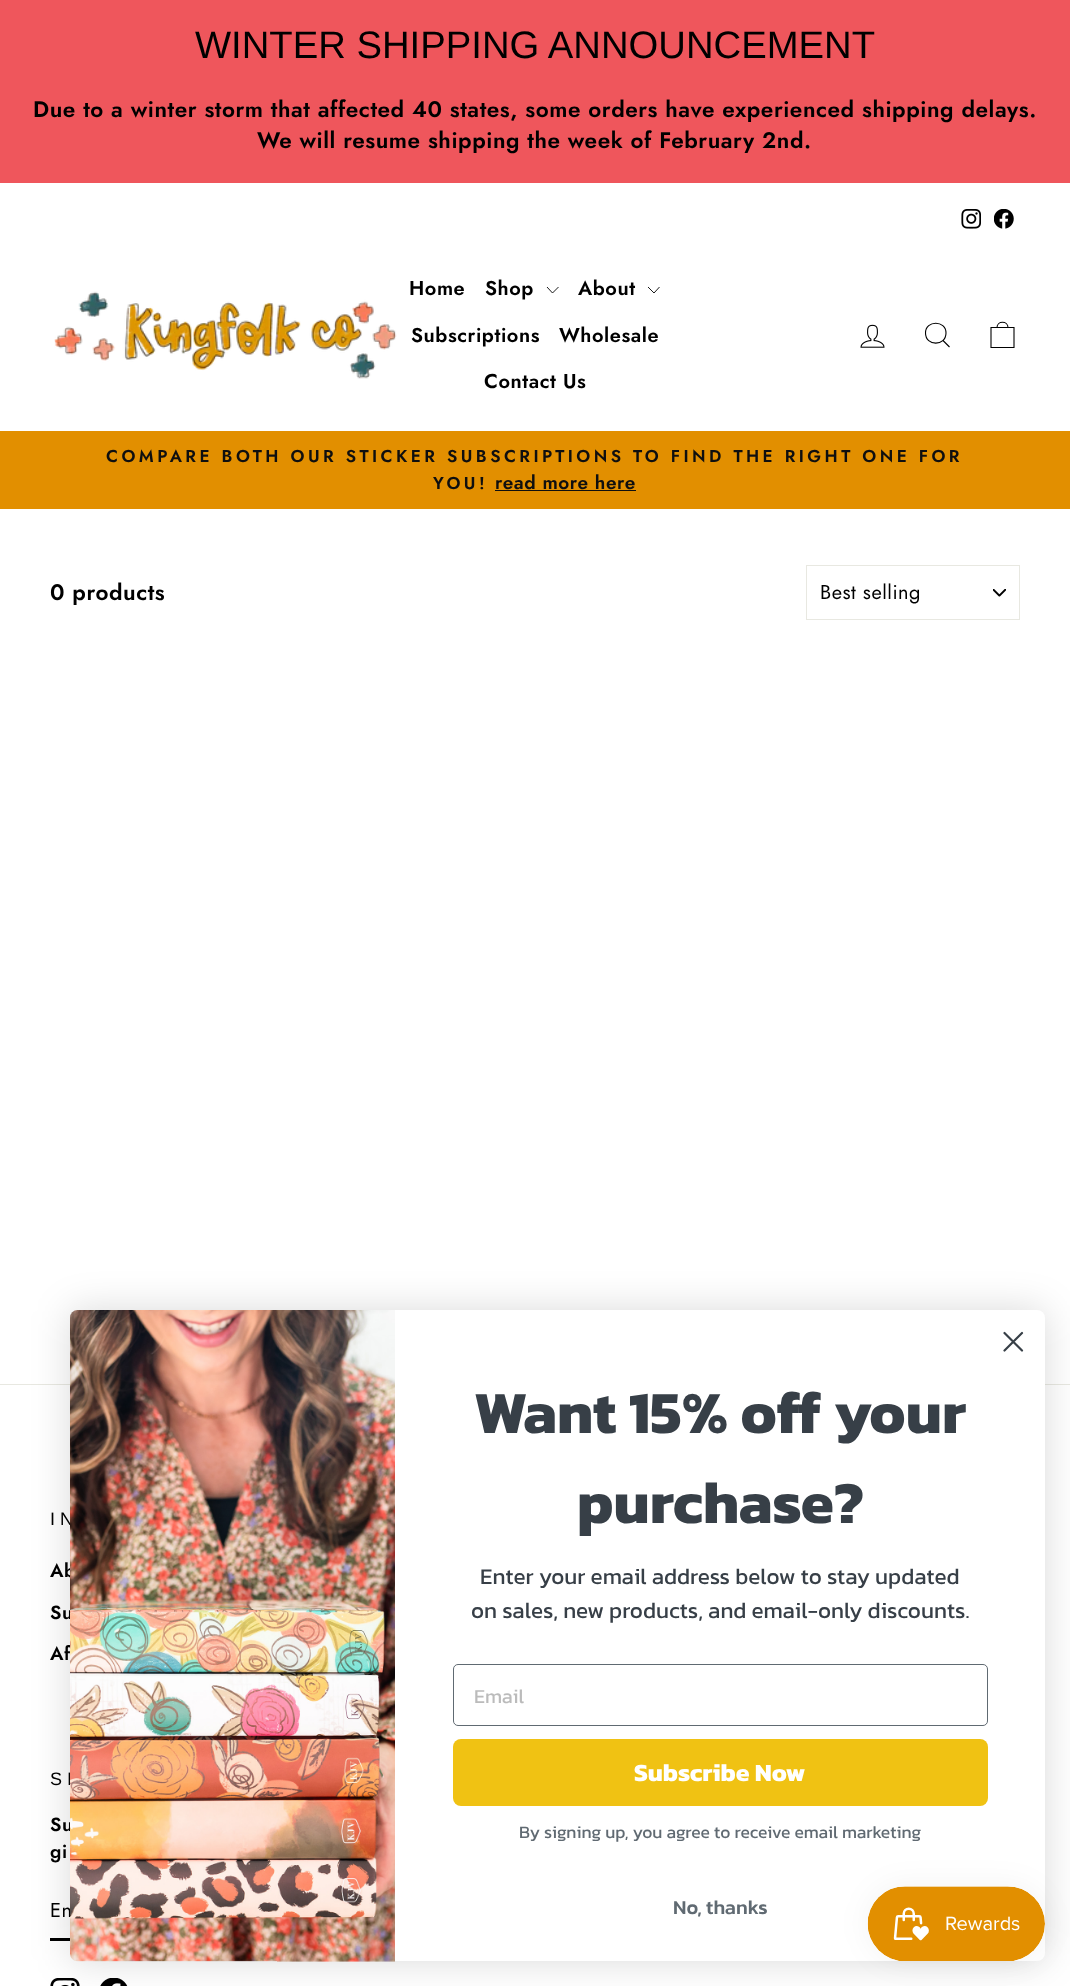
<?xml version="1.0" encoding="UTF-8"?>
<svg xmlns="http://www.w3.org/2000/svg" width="1070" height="1986">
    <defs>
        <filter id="blur1" x="-50%" y="-200%" width="200%" height="500%"><feGaussianBlur stdDeviation="19"/></filter>
        <filter id="blur2" x="-50%" y="-200%" width="200%" height="500%"><feGaussianBlur stdDeviation="15.5"/></filter>
    </defs>
    <rect width="100%" height="100%" fill="#FFFFFF"/>
    <rect x="0" y="0" width="1070" height="183" fill="#EF565C"/>
    <text x="195" y="58" font-family="Liberation Sans" font-size="38.25" fill="#000000">WINTER SHIPPING ANNOUNCEMENT</text>
    <text x="33" y="117" font-family="Jost" font-size="22.5" font-weight="600" letter-spacing="0.55" fill="#000000">Due to a winter storm that affected 40 states, some orders have experienced shipping delays.</text>
    <text x="257" y="148" font-family="Jost" font-size="22.5" font-weight="600" letter-spacing="0.55" fill="#000000">We will resume shipping the week of February 2nd.</text>
    <image x="961" y="209" width="20" height="20" href="img_01.png"/>
    <image x="994" y="209" width="20" height="20" href="img_02.png"/>
    <image x="54" y="291" width="343" height="88" href="img_03.png"/>
    <text x="409" y="295" font-family="Jost" font-size="20" font-weight="600" letter-spacing="0.55" fill="#000000">Home</text>
    <text x="485" y="295" font-family="Jost" font-size="20" font-weight="600" letter-spacing="0.55" fill="#000000">Shop</text>
    <path d="M 547 287 L 552.5 293 L 558.5 287" fill="none" stroke="#000000" stroke-width="0.9"/>
    <text x="578" y="295" font-family="Jost" font-size="20" font-weight="600" letter-spacing="0.55" fill="#000000">About</text>
    <path d="M 648 287 L 654 293 L 659.5 287" fill="none" stroke="#000000" stroke-width="0.9"/>
    <text x="411" y="342" font-family="Jost" font-size="20" font-weight="600" letter-spacing="0.55" fill="#000000">Subscriptions</text>
    <text x="559" y="342" font-family="Jost" font-size="20" font-weight="600" letter-spacing="0.55" fill="#000000">Wholesale</text>
    <text x="484" y="388" font-family="Jost" font-size="20" font-weight="600" letter-spacing="0.55" fill="#000000">Contact Us</text>
    <image x="860" y="324" width="25" height="24" href="img_04.png"/>
    <path d="M 946 333 C 946 346.5 925.5 346.5 925.5 333 C 925.5 320 946 320 946 333 Z M 949.5 347 L 943 340.5" fill="none" stroke="#000000" stroke-width="1.1"/>
    <path d="M 991 327.5 H 1014 V 347.5 H 991 Z M 997 327.5 C 997 320.5 1008 320.5 1008 327.5" fill="none" stroke="#000000" stroke-width="1.1"/>
    <rect x="0" y="431" width="1070" height="78" fill="#E28F00"/>
    <text x="106" y="462" font-family="Jost" font-size="17.2" font-weight="600" letter-spacing="3.45" fill="#0F0F0F">COMPARE BOTH OUR STICKER SUBSCRIPTIONS TO FIND THE RIGHT ONE FOR</text>
    <text x="433" y="489" font-family="Jost" font-size="17.2" font-weight="600" letter-spacing="3.45" fill="#0F0F0F">YOU!</text>
    <text x="495" y="489" font-family="Jost" font-size="19" font-weight="600" letter-spacing="0.55" fill="#0F0F0F">read more here</text>
    <rect x="495" y="490" width="141" height="1" fill="#0F0F0F"/>
    <text x="50" y="600" font-family="Jost" font-size="22.5" font-weight="600" letter-spacing="0.55" fill="#000000">0 products</text>
    <image x="993" y="589" width="13" height="8" href="img_05.png"/>
    <rect x="806.5" y="565.5" width="213" height="54" fill="none" stroke="#E8E8E1"/>
    <text x="820" y="599" font-family="Jost" font-size="20" letter-spacing="0.5" fill="#000000">Best selling</text>
    <rect x="0" y="1384" width="1070" height="1" fill="#E8E8E1"/>
    <text x="50" y="1525" font-family="Liberation Sans" font-size="18" letter-spacing="5" fill="#000000">IN</text>
    <text x="50" y="1577" font-family="Jost" font-size="19" font-weight="600" letter-spacing="0.55" fill="#000000">Ab</text>
    <text x="50" y="1619" font-family="Jost" font-size="19" font-weight="600" letter-spacing="0.55" fill="#000000">Su</text>
    <text x="50" y="1660" font-family="Jost" font-size="19" font-weight="600" letter-spacing="0.55" fill="#000000">Af</text>
    <text x="50" y="1785" font-family="Liberation Sans" font-size="18" letter-spacing="5" fill="#000000">SI</text>
    <text font-family="Jost" font-size="19" font-weight="600" letter-spacing="0.55" fill="#000000">
        <tspan x="50" y="1831">Su</tspan>
        <tspan x="50" y="1858">gi</tspan>
    </text>
    <rect x="50" y="1938" width="20" height="3" fill="#000000"/>
    <text x="50" y="1917" font-family="Jost" font-size="20" letter-spacing="0.5" fill="#000000">En</text>
    <image x="50" y="1978" width="30" height="8" href="img_06.png"/>
    <image x="100" y="1978" width="28" height="8" href="img_07.png"/>
    <rect x="70" y="1310" width="975" height="651" rx="8" fill="#000000" fill-opacity="0.15" filter="url(#blur1)"/>
    <rect x="70" y="1310" width="975" height="651" rx="8" fill="#FFFFFF"/>
    <path d="M 1004.5 1333 L 1022 1350.5 M 1004.5 1350.5 L 1022 1333 Z" fill="none" stroke="#373F47" stroke-width="2.2" stroke-linecap="round" stroke-linejoin="round"/>
    <image x="70" y="1310" width="325" height="652" href="img_08.png"/>
    <text x="474" y="1433" font-family="Kanit" font-size="60" font-weight="700" fill="#373F47">Want 15% off your</text>
    <text x="577" y="1523" font-family="Kanit" font-size="60" font-weight="700" fill="#373F47">purchase?</text>
    <text x="480" y="1584" font-family="Kanit" font-size="22.5" fill="#373F47">Enter your email address below to stay updated</text>
    <text x="471" y="1618" font-family="Kanit" font-size="22.5" fill="#373F47">on sales, new products, and email-only discounts.</text>
    <rect x="453.5" y="1664.5" width="534" height="61" rx="4.5" fill="none" stroke="#606A72"/>
    <text x="474" y="1703" font-family="Kanit" font-size="20" fill="#BBBBBB">Email</text>
    <rect x="453" y="1739" width="535" height="67" rx="8" fill="#F0C213"/>
    <text x="634" y="1781" font-family="Kanit" font-size="25" font-weight="700" fill="#FFFFFF">Subscribe Now</text>
    <text x="519" y="1838" font-family="Kanit" font-size="17.5" fill="#606A72">By signing up, you agree to receive email marketing</text>
    <text x="673" y="1914" font-family="Kanit" font-size="20" font-weight="500" fill="#606A72">No, thanks</text>
    <rect x="868" y="1886" width="177" height="75" rx="37.5" fill="#000000" fill-opacity="0.05" filter="url(#blur2)"/>
    <image x="867" y="1886" width="178" height="75" href="img_09.png"/>
</svg>
